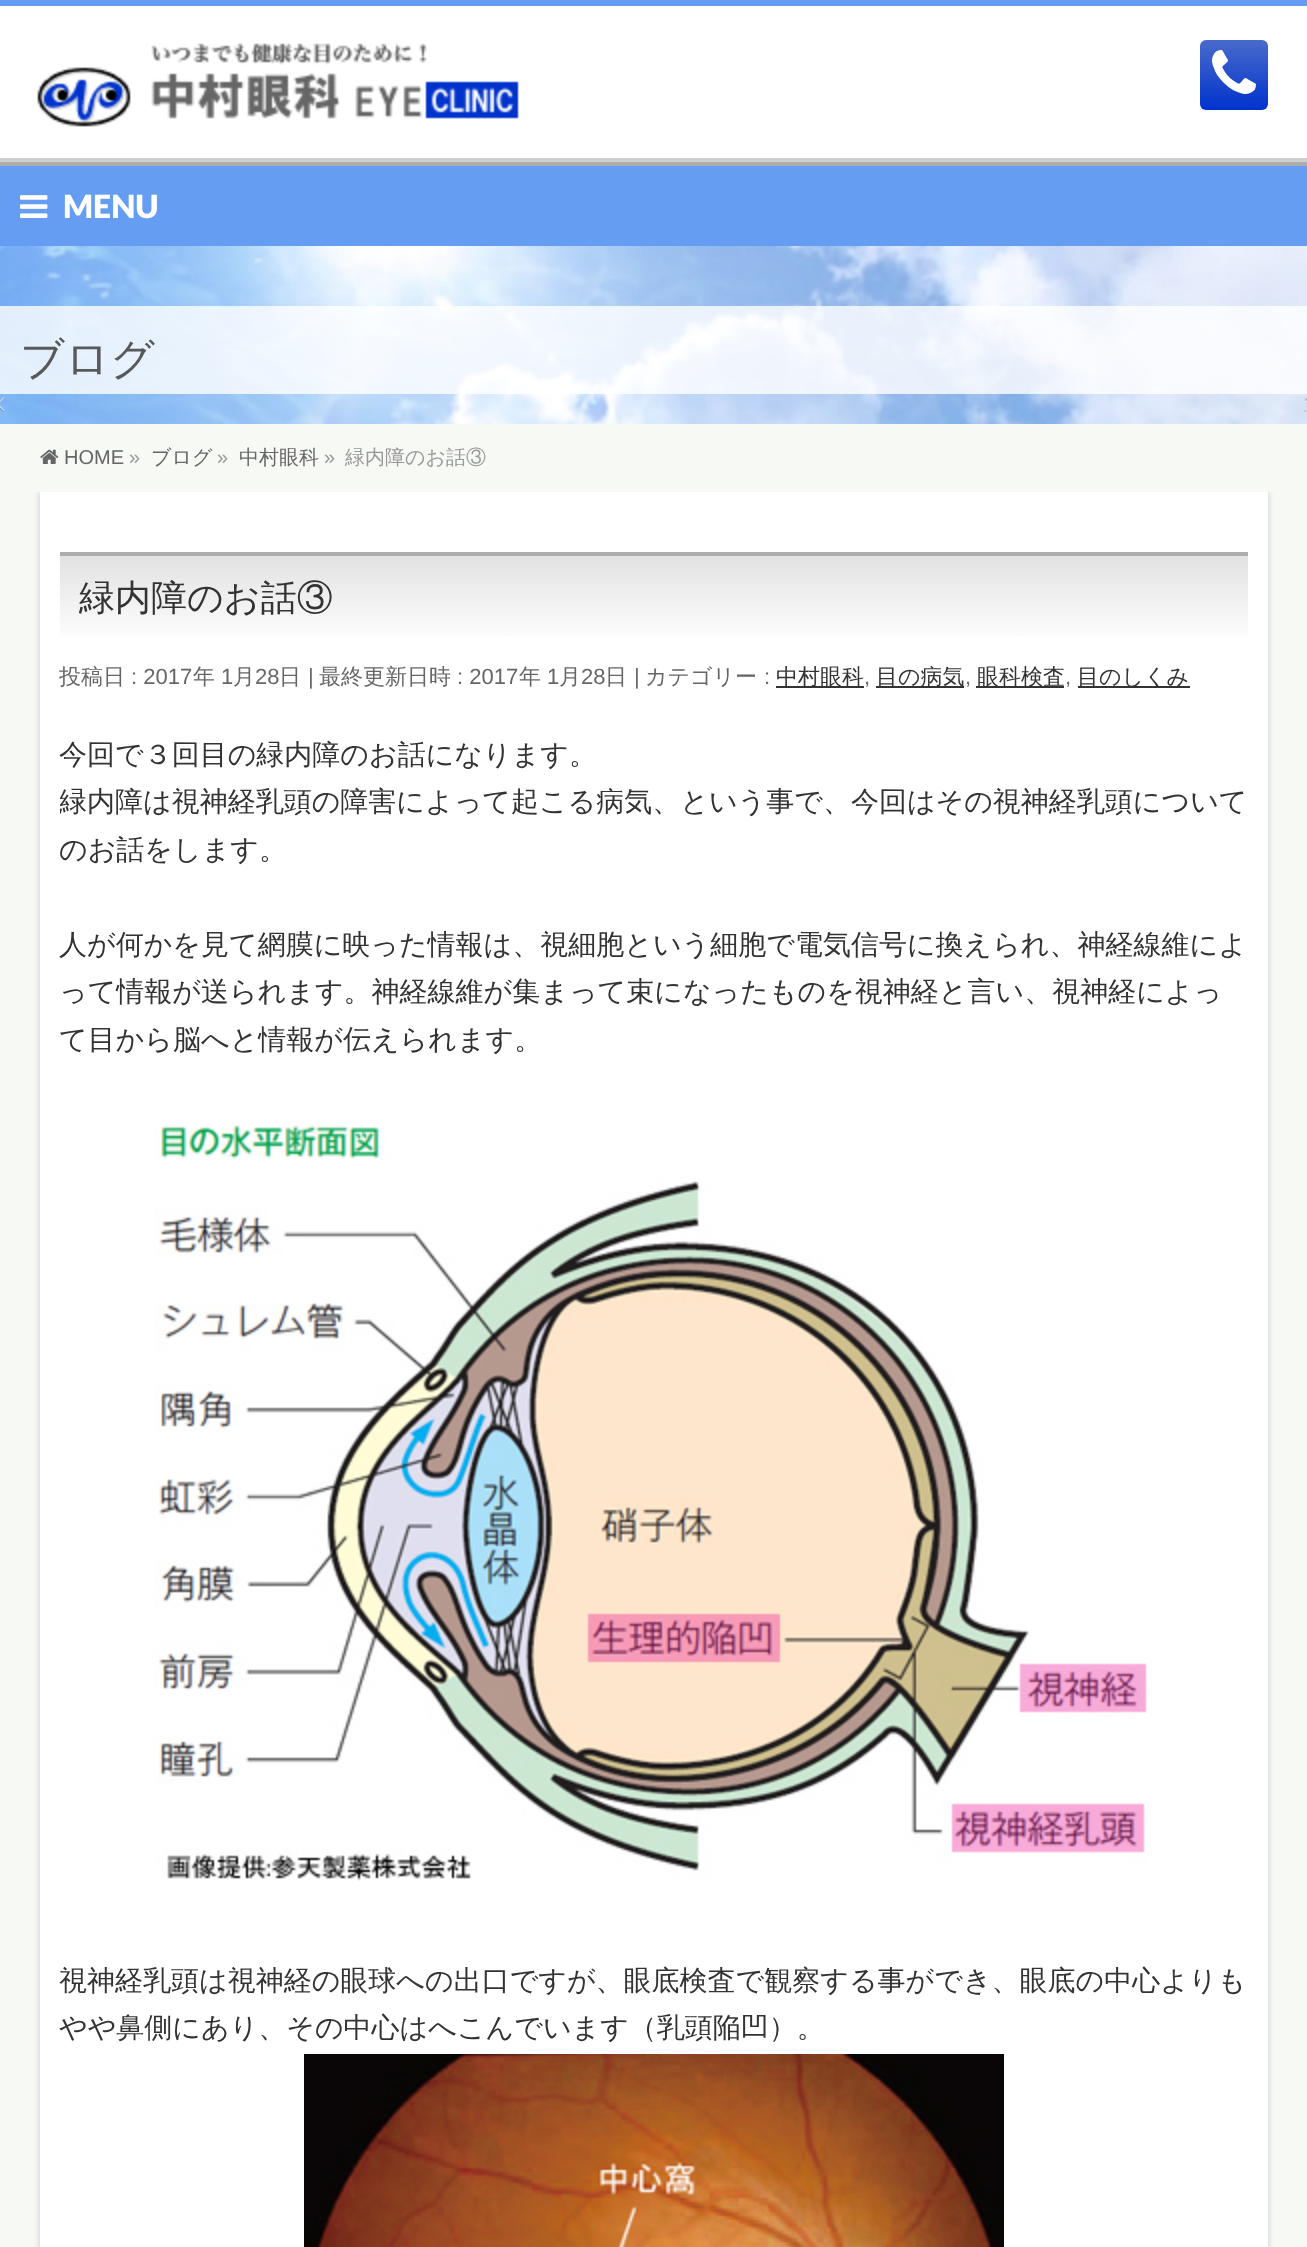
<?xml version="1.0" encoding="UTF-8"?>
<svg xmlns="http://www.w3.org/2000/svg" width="1307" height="2247">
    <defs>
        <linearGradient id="g1" gradientUnits="userSpaceOnUse" x1="1234" y1="40" x2="1234" y2="110"><stop offset="0" stop-color="#496ACC"/><stop offset="1" stop-color="#0033CC"/></linearGradient>
        <filter id="blur1" x="-50%" y="-200%" width="200%" height="500%"><feGaussianBlur stdDeviation="3"/></filter>
        <linearGradient id="g2" gradientUnits="userSpaceOnUse" x1="654" y1="556" x2="654" y2="644"><stop offset="0" stop-color="#E2E2E2"/><stop offset="1" stop-color="#FFFFFF"/></linearGradient>
        <clipPath id="clip1"><rect x="60" y="732" width="1188" height="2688"/></clipPath>
    </defs>
    <rect width="100%" height="100%" fill="#FFFFFF"/>
    <rect x="0" y="0" width="1307" height="6" fill="#659DF2"/>
    <image x="37" y="43" width="482" height="84" href="img_01.png"/>
    <rect x="1200" y="40" width="68" height="70" rx="6" fill="url(#g1)"/>
    <image x="1212" y="50" width="44" height="44" href="img_02.png"/>
    <rect x="0" y="158" width="1307" height="4" fill="#CECECE"/>
    <rect x="0" y="166" width="1307" height="80" fill="#659DF2"/>
    <rect x="0" y="162" width="1307" height="4" fill="#ADADAD"/>
    <image x="20" y="195" width="28" height="23" href="img_03.png"/>
    <text x="63" y="218" font-family="Lato" font-size="32" font-weight="900" fill="#FFFFFF">MENU</text>
    <image x="0" y="246" width="1307" height="178" href="img_04.png"/>
    <rect x="0" y="306" width="1307" height="88" fill="#FFFFFF" fill-opacity="0.8"/>
    <text x="20" y="374" font-family="WenQuanYi Zen Hei" font-size="44" font-weight="500" fill="#57595B">ブログ</text>
    <rect x="0" y="492" width="1307" height="1755" fill="#F7F9F4"/>
    <rect x="40" y="492" width="1228" height="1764" fill="#000000" fill-opacity="0.2" filter="url(#blur1)"/>
    <rect x="0" y="424" width="1307" height="68" fill="#F7F9F4"/>
    <image x="40" y="449" width="19" height="15" href="img_05.png"/>
    <text x="64" y="464" font-family="Liberation Sans" font-size="20" fill="#666666">HOME</text>
    <text x="129" y="464" font-family="Liberation Sans" font-size="20" fill="#999999">»</text>
    <text x="151" y="464" font-family="WenQuanYi Zen Hei" font-size="20" font-weight="500" fill="#666666">ブログ</text>
    <text x="217" y="464" font-family="Liberation Sans" font-size="20" fill="#999999">»</text>
    <text x="239" y="464" font-family="WenQuanYi Zen Hei" font-size="20" font-weight="500" fill="#666666">中村眼科</text>
    <text x="324" y="464" font-family="Liberation Sans" font-size="20" fill="#999999">»</text>
    <text x="345" y="464" font-family="WenQuanYi Zen Hei" font-size="20" font-weight="500" fill="#999999">緑内障のお話③</text>
    <rect x="40" y="492" width="1228" height="1755" fill="#FFFFFF"/>
    <rect x="60" y="556" width="1188" height="80" fill="url(#g2)"/>
    <rect x="60" y="552" width="1188" height="4" fill="#ADADAD"/>
    <text x="79" y="610" font-family="WenQuanYi Zen Hei" font-size="36" font-weight="500" fill="#333333">緑内障のお話③</text>
    <text x="59" y="684" font-family="WenQuanYi Zen Hei" font-size="22" font-weight="500" fill="#666666">投稿日</text>
    <text x="131" y="684" font-family="Liberation Sans" font-size="22" fill="#666666">: 2017</text>
    <text x="193" y="684" font-family="WenQuanYi Zen Hei" font-size="22" font-weight="500" fill="#666666">年</text>
    <text x="221" y="684" font-family="Liberation Sans" font-size="22" fill="#666666">1</text>
    <text x="233" y="684" font-family="WenQuanYi Zen Hei" font-size="22" font-weight="500" fill="#666666">月</text>
    <text x="255" y="684" font-family="Liberation Sans" font-size="22" fill="#666666">28</text>
    <text x="279" y="684" font-family="WenQuanYi Zen Hei" font-size="22" font-weight="500" fill="#666666">日</text>
    <text x="308" y="684" font-family="Liberation Sans" font-size="22" fill="#666666">|</text>
    <text x="319" y="684" font-family="WenQuanYi Zen Hei" font-size="22" font-weight="500" fill="#666666">最終更新日時</text>
    <text x="457" y="684" font-family="Liberation Sans" font-size="22" fill="#666666">: 2017</text>
    <text x="519" y="684" font-family="WenQuanYi Zen Hei" font-size="22" font-weight="500" fill="#666666">年</text>
    <text x="547" y="684" font-family="Liberation Sans" font-size="22" fill="#666666">1</text>
    <text x="559" y="684" font-family="WenQuanYi Zen Hei" font-size="22" font-weight="500" fill="#666666">月</text>
    <text x="581" y="684" font-family="Liberation Sans" font-size="22" fill="#666666">28</text>
    <text x="605" y="684" font-family="WenQuanYi Zen Hei" font-size="22" font-weight="500" fill="#666666">日</text>
    <text x="634" y="684" font-family="Liberation Sans" font-size="22" fill="#666666">|</text>
    <text x="645" y="684" font-family="WenQuanYi Zen Hei" font-size="22" font-weight="500" fill="#666666">カテゴリー</text>
    <text x="764" y="684" font-family="Liberation Sans" font-size="22" fill="#666666">:</text>
    <rect x="776" y="686" width="88" height="2" fill="#333333"/>
    <text x="776" y="684" font-family="WenQuanYi Zen Hei" font-size="22" font-weight="500" fill="#333333">中村眼科</text>
    <text x="864" y="684" font-family="Liberation Sans" font-size="22" fill="#666666">,</text>
    <rect x="876" y="686" width="88" height="2" fill="#333333"/>
    <text x="876" y="684" font-family="WenQuanYi Zen Hei" font-size="22" font-weight="500" fill="#333333">目の病気</text>
    <text x="965" y="684" font-family="Liberation Sans" font-size="22" fill="#666666">,</text>
    <rect x="976" y="686" width="88" height="2" fill="#333333"/>
    <text x="977" y="684" font-family="WenQuanYi Zen Hei" font-size="22" font-weight="500" fill="#333333">眼科検査</text>
    <text x="1065" y="684" font-family="Liberation Sans" font-size="22" fill="#666666">,</text>
    <rect x="1078" y="686" width="112" height="2" fill="#333333"/>
    <text x="1077" y="684" font-family="WenQuanYi Zen Hei" font-size="22" font-weight="500" fill="#333333">目のしくみ</text>
    <text x="59" y="764" font-family="WenQuanYi Zen Hei" font-size="28" font-weight="500" fill="#333333">今回で３回目の緑内障のお話になります。</text>
    <g clip-path="url(#clip1)">
        <text x="59" y="811" font-family="WenQuanYi Zen Hei" font-size="28" font-weight="500" fill="#333333">緑内障は視神経乳頭の障害によって起こる病気、という事で、今回はその視神経乳頭について</text>
    </g>
    <text x="59" y="859" font-family="WenQuanYi Zen Hei" font-size="28" font-weight="500" fill="#333333">のお話をします。</text>
    <text font-family="WenQuanYi Zen Hei" font-size="28" font-weight="500" fill="#333333">
        <tspan x="59" y="954">人が何かを見て網膜に映った情報は、視細胞という細胞で電気信号に換えられ、神経線維によ</tspan>
        <tspan x="59" y="1001">って情報が送られます。神経線維が集まって束になったものを視神経と言い、視神経によっ</tspan>
        <tspan x="59" y="1049">て目から脳へと情報が伝えられます。</tspan>
    </text>
    <image x="154" y="1120" width="993" height="761" href="img_06.png"/>
    <text font-family="WenQuanYi Zen Hei" font-size="28" font-weight="500" fill="#333333">
        <tspan x="59" y="1990">視神経乳頭は視神経の眼球への出口ですが、眼底検査で観察する事ができ、眼底の中心よりも</tspan>
        <tspan x="59" y="2037">やや鼻側にあり、その中心はへこんでいます（乳頭陥凹）。</tspan>
    </text>
    <image x="304" y="2054" width="700" height="193" href="img_07.png"/>
</svg>
